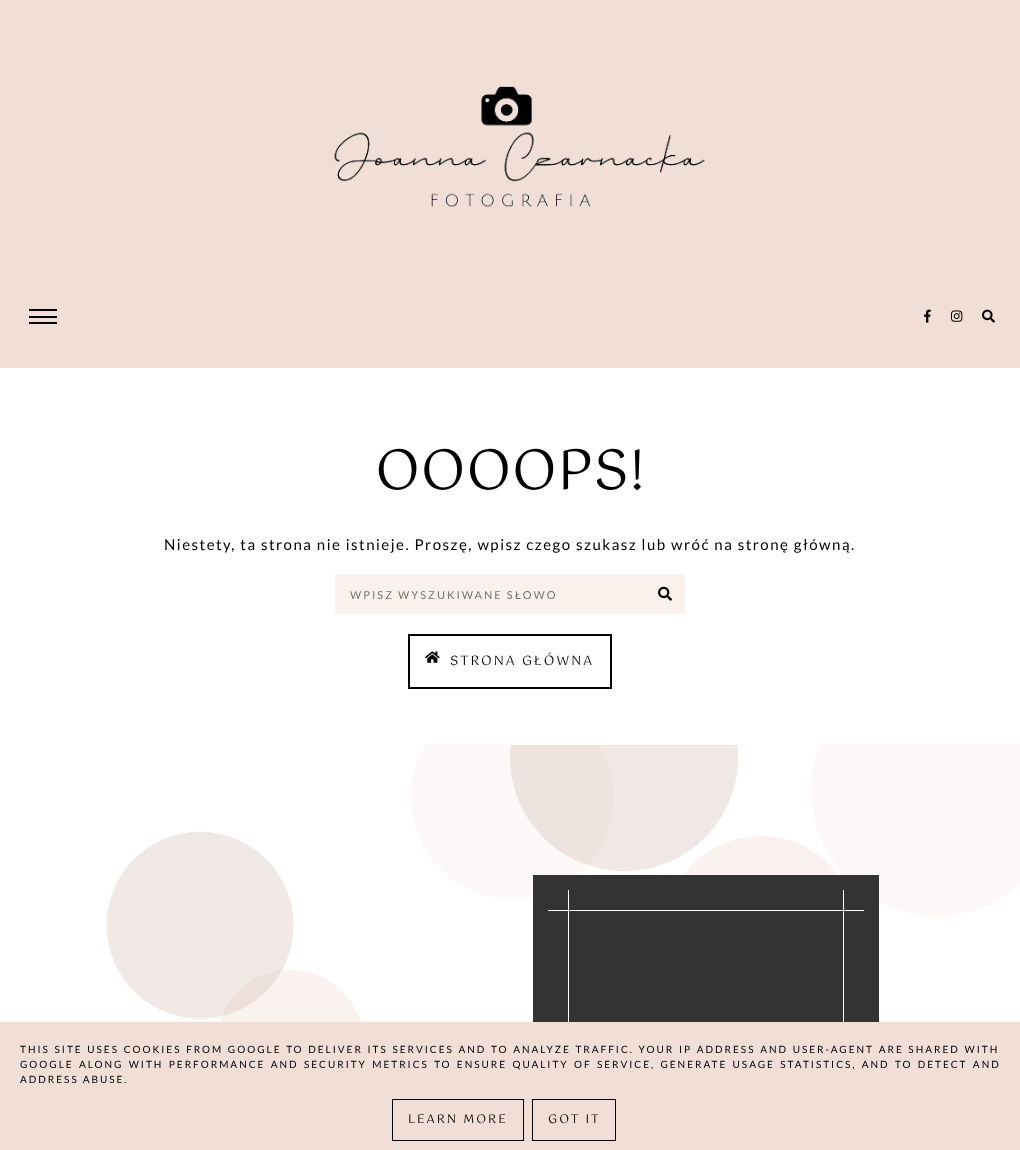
<?xml version="1.0" encoding="UTF-8"?>
<svg xmlns="http://www.w3.org/2000/svg" width="1020" height="1150">
    <rect width="100%" height="100%" fill="#FFFFFF"/>
    <rect x="0" y="0" width="1020" height="368" fill="#F1DED6"/>
    <rect x="29" y="309" width="28" height="2" fill="#000000"/>
    <rect x="29" y="316" width="28" height="2" fill="#000000"/>
    <rect x="29" y="322" width="28" height="2" fill="#000000"/>
    <image x="334" y="86" width="371" height="121" href="img_01.png"/>
    <image x="924" y="309" width="7" height="14" href="img_02.png"/>
    <image x="951" y="310" width="12" height="12" href="img_03.png"/>
    <image x="982" y="309" width="13" height="14" href="img_04.png"/>
    <text x="375" y="489" font-family="Gotu" font-size="55" letter-spacing="0.5" fill="#000000">OOOOPS!</text>
    <text x="164" y="550" font-family="Lato" font-size="15" letter-spacing="1.5" fill="#000000">Niestety, ta strona nie istnieje. Proszę, wpisz czego szukasz lub wróć na stronę główną.</text>
    <rect x="335" y="574" width="350" height="40" fill="#FAF1EC"/>
    <text x="350" y="599" font-family="Lato" font-size="11" letter-spacing="2" fill="#757575">WPISZ WYSZUKIWANE SŁOWO</text>
    <image x="658" y="586" width="14" height="15" href="img_05.png"/>
    <rect x="409" y="635" width="202" height="53" fill="none" stroke="#000000" stroke-width="2"/>
    <image x="425" y="651" width="15" height="12" href="img_06.png"/>
    <text x="450" y="665" font-family="Gotu" font-size="13" letter-spacing="2" fill="#000000">STRONA GŁÓWNA</text>
    <image x="106" y="745" width="914" height="277" href="img_07.png"/>
    <rect x="533" y="875" width="346" height="147" fill="#333333"/>
    <rect x="548" y="910" width="316" height="1" fill="#FFFFFF"/>
    <rect x="843" y="890" width="1" height="132" fill="#FFFFFF"/>
    <rect x="568" y="890" width="1" height="132" fill="#FFFFFF"/>
    <rect x="0" y="1022" width="1020" height="128" fill="#F1DED6"/>
    <text font-family="Lato" font-size="10" letter-spacing="2" fill="#000000">
        <tspan x="20" y="1053" word-spacing="0.75">THIS SITE USES COOKIES FROM GOOGLE TO DELIVER ITS SERVICES AND TO ANALYZE TRAFFIC. YOUR IP ADDRESS AND USER-AGENT ARE SHARED WITH</tspan>
        <tspan x="20" y="1068" word-spacing="1.4">GOOGLE ALONG WITH PERFORMANCE AND SECURITY METRICS TO ENSURE QUALITY OF SERVICE, GENERATE USAGE STATISTICS, AND TO DETECT AND</tspan>
        <tspan x="20" y="1083">ADDRESS ABUSE.</tspan>
    </text>
    <rect x="392.5" y="1099.5" width="131" height="41" fill="none" stroke="#000000"/>
    <text x="408" y="1123" font-family="Gotu" font-size="12" letter-spacing="2" fill="#000000">LEARN MORE</text>
    <rect x="532.5" y="1099.5" width="83" height="41" fill="none" stroke="#000000"/>
    <text x="548" y="1123" font-family="Gotu" font-size="12" letter-spacing="2" fill="#000000">GOT IT</text>
</svg>
